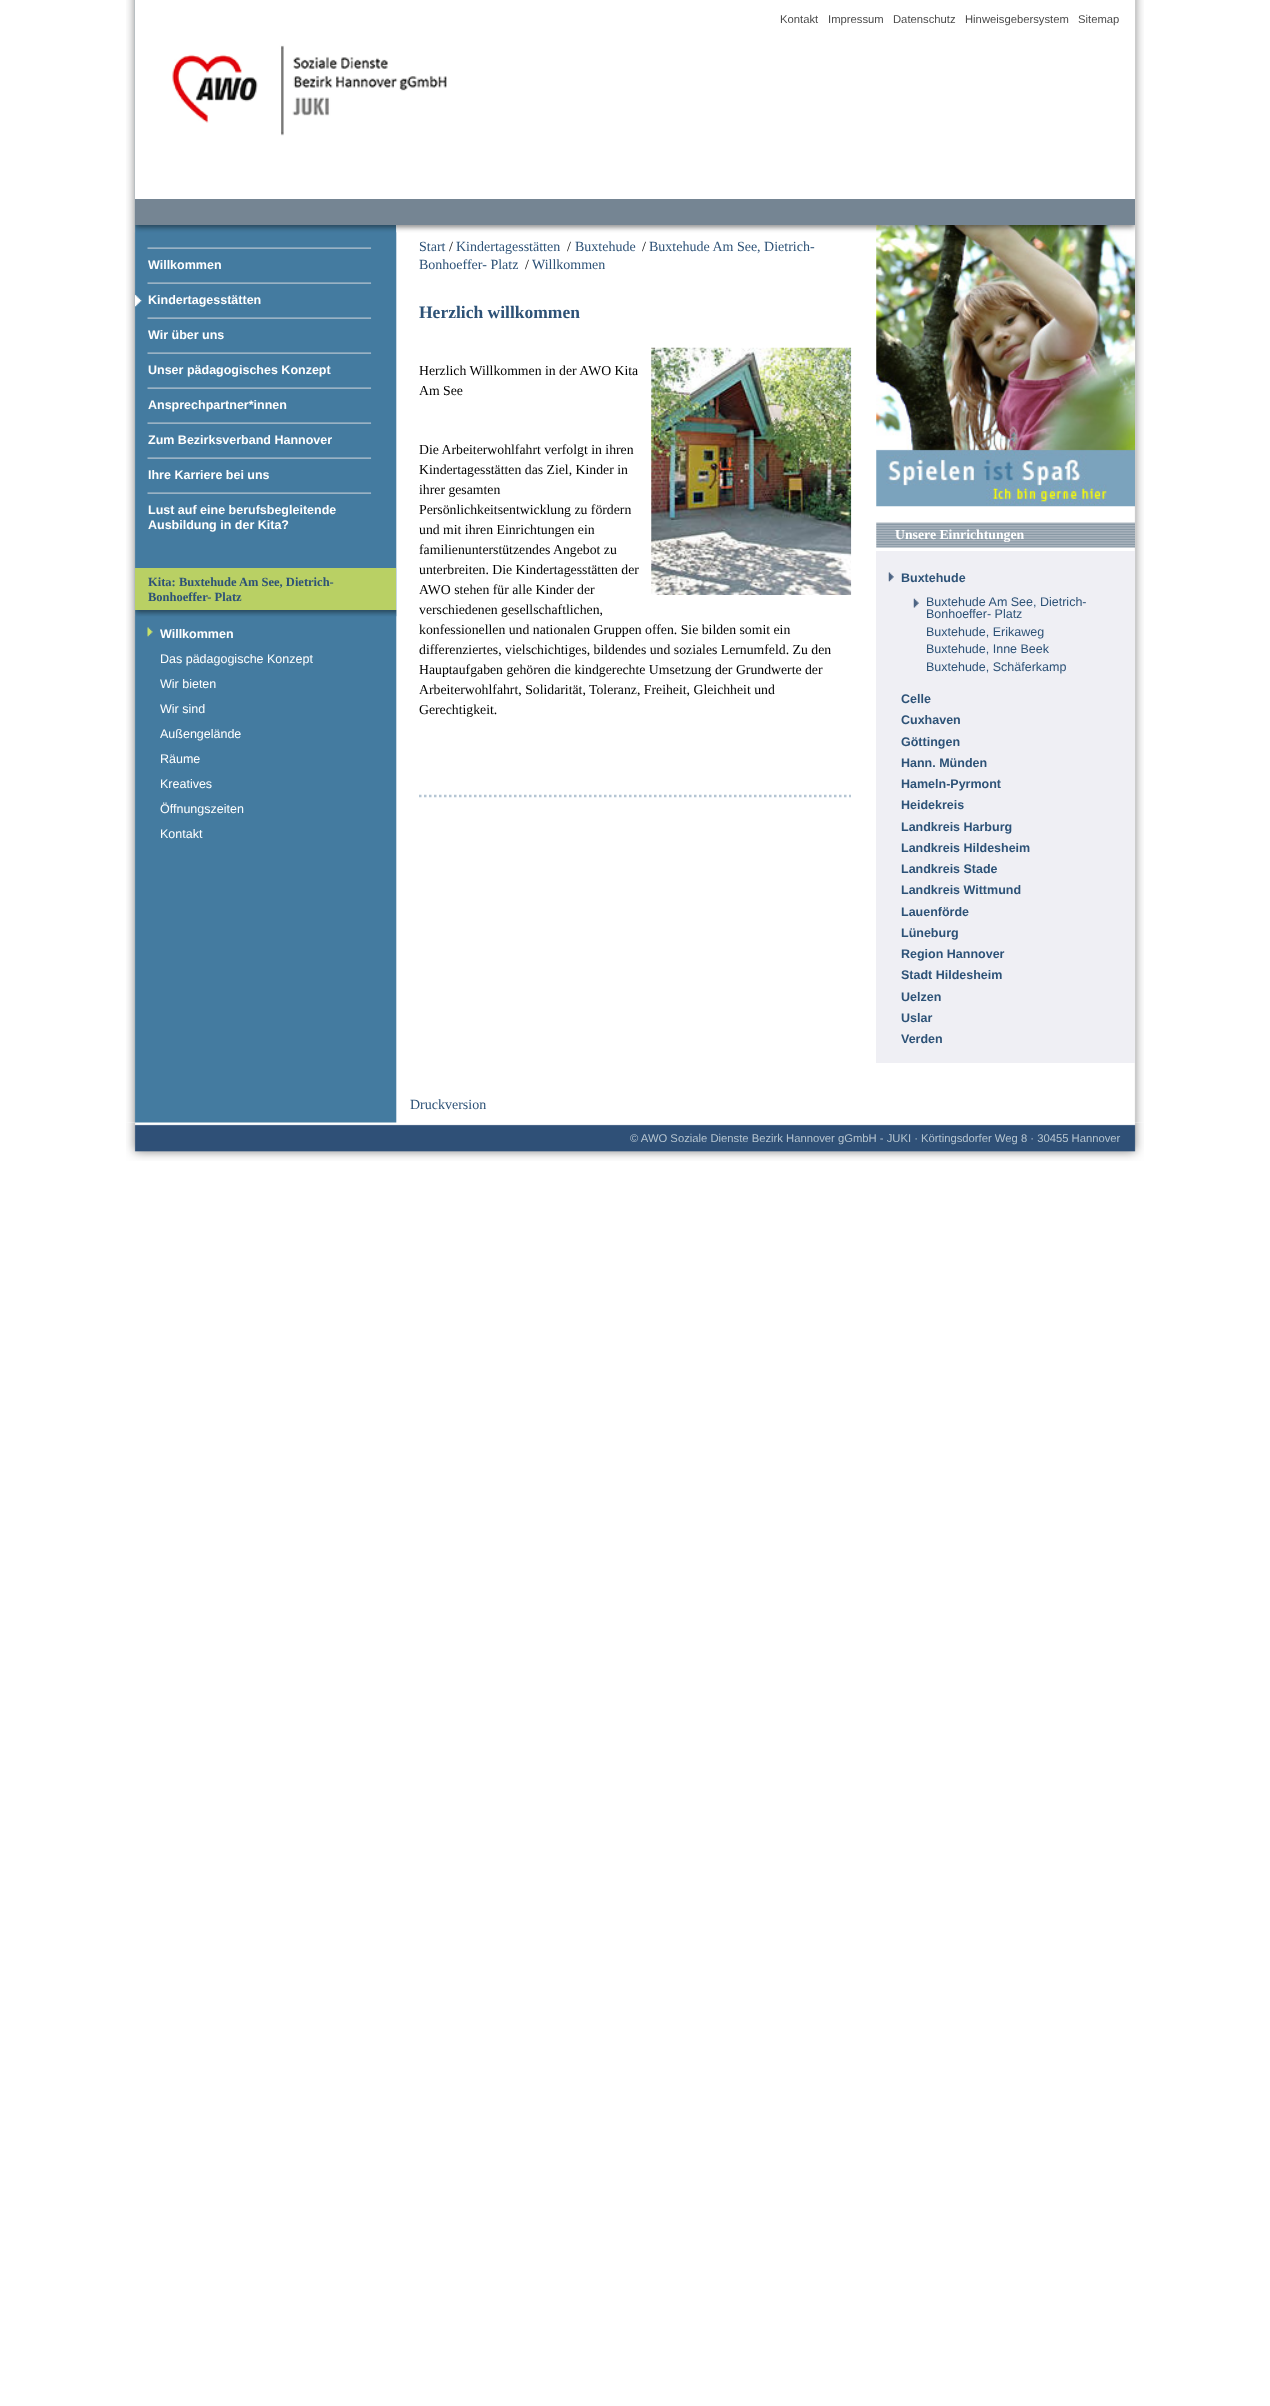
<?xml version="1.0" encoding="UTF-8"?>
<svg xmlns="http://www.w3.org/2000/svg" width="1270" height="2406">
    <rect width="100%" height="100%" fill="#FFFFFF"/>
    <image x="126" y="1122" width="1018" height="39" href="img_15.png"/>
    <image x="126" y="0" width="1018" height="1123" href="img_01.png"/>
    <rect x="135" y="0" width="1000" height="199" fill="#FFFFFF"/>
    <image x="172" y="45" width="275" height="91" href="img_02.png"/>
    <rect x="135" y="199" width="1000" height="26" fill="#758593"/>
    <text x="780" y="23" font-family="Liberation Sans" font-size="11.25" fill="#4A4A4A">Kontakt</text>
    <text x="828" y="23" font-family="Liberation Sans" font-size="11.25" fill="#4A4A4A">Impressum</text>
    <text x="893" y="23" font-family="Liberation Sans" font-size="11.25" fill="#4A4A4A">Datenschutz</text>
    <text x="965" y="23" font-family="Liberation Sans" font-size="11.25" fill="#4A4A4A">Hinweisgebersystem</text>
    <text x="1078" y="23" font-family="Liberation Sans" font-size="11.25" fill="#4A4A4A">Sitemap</text>
    <image x="134" y="225" width="263" height="8" href="img_03.png"/>
    <image x="147" y="247" width="225" height="2" href="img_04.png"/>
    <text x="148" y="269" font-family="Liberation Sans" font-size="12.5" font-weight="700" fill="#FFFFFF">Willkommen</text>
    <image x="135" y="282" width="237" height="25" href="img_05.png"/>
    <text x="148" y="304" font-family="Liberation Sans" font-size="12.5" font-weight="700" fill="#FFFFFF">Kindertagesstätten</text>
    <image x="147" y="317" width="225" height="2" href="img_04.png"/>
    <text x="148" y="339" font-family="Liberation Sans" font-size="12.5" font-weight="700" fill="#FFFFFF">Wir über uns</text>
    <image x="147" y="352" width="225" height="2" href="img_04.png"/>
    <text x="148" y="374" font-family="Liberation Sans" font-size="12.5" font-weight="700" fill="#FFFFFF">Unser pädagogisches Konzept</text>
    <image x="147" y="387" width="225" height="2" href="img_04.png"/>
    <text x="148" y="409" font-family="Liberation Sans" font-size="12.5" font-weight="700" fill="#FFFFFF">Ansprechpartner*innen</text>
    <image x="147" y="422" width="225" height="2" href="img_04.png"/>
    <text x="148" y="444" font-family="Liberation Sans" font-size="12.5" font-weight="700" fill="#FFFFFF">Zum Bezirksverband Hannover</text>
    <image x="147" y="457" width="225" height="2" href="img_04.png"/>
    <text x="148" y="479" font-family="Liberation Sans" font-size="12.5" font-weight="700" fill="#FFFFFF">Ihre Karriere bei uns</text>
    <image x="147" y="492" width="225" height="2" href="img_04.png"/>
    <text font-family="Liberation Sans" font-size="12.5" font-weight="700" fill="#FFFFFF">
        <tspan x="148" y="514">Lust auf eine berufsbegleitende</tspan>
        <tspan x="148" y="529">Ausbildung in der Kita?</tspan>
    </text>
    <image x="396" y="225" width="481" height="8" href="img_06.png"/>
    <text x="419" y="251" font-family="Liberation Serif" font-size="14" fill="#2D5277">Start</text>
    <text x="449" y="251" font-family="Liberation Serif" font-size="14" fill="#000000">/</text>
    <text x="456" y="251" font-family="Liberation Serif" font-size="14" fill="#2D5277">Kindertagesstätten</text>
    <text x="567" y="251" font-family="Liberation Serif" font-size="14" fill="#000000">/</text>
    <text x="575" y="251" font-family="Liberation Serif" font-size="14" fill="#2D5277">Buxtehude</text>
    <text x="642" y="251" font-family="Liberation Serif" font-size="14" fill="#000000">/</text>
    <text x="649" y="251" font-family="Liberation Serif" font-size="14" fill="#2D5277">Buxtehude Am See, Dietrich-</text>
    <text x="419" y="269" font-family="Liberation Serif" font-size="14" fill="#2D5277">Bonhoeffer- Platz</text>
    <text x="525" y="269" font-family="Liberation Serif" font-size="14" fill="#000000">/</text>
    <text x="532" y="269" font-family="Liberation Serif" font-size="14" fill="#2D5277">Willkommen</text>
    <text x="419" y="318" font-family="Liberation Serif" font-size="17.5" font-weight="700" fill="#2D5277">Herzlich willkommen</text>
    <image x="651" y="347" width="201" height="248" href="img_07.png"/>
    <text font-family="Liberation Serif" font-size="13.75" fill="#000000">
        <tspan x="419" y="375">Herzlich Willkommen in der AWO Kita</tspan>
        <tspan x="419" y="395">Am See</tspan>
    </text>
    <text font-family="Liberation Serif" font-size="13.75" fill="#000000">
        <tspan x="419" y="454">Die Arbeiterwohlfahrt verfolgt in ihren</tspan>
        <tspan x="419" y="474">Kindertagesstätten das Ziel, Kinder in</tspan>
        <tspan x="419" y="494">ihrer gesamten</tspan>
        <tspan x="419" y="514">Persönlichkeitsentwicklung zu fördern</tspan>
        <tspan x="419" y="534">und mit ihren Einrichtungen ein</tspan>
        <tspan x="419" y="554">familienunterstützendes Angebot zu</tspan>
        <tspan x="419" y="574">unterbreiten. Die Kindertagesstätten der</tspan>
        <tspan x="419" y="594">AWO stehen für alle Kinder der</tspan>
        <tspan x="419" y="614">verschiedenen gesellschaftlichen,</tspan>
        <tspan x="419" y="634">konfessionellen und nationalen Gruppen offen. Sie bilden somit ein</tspan>
        <tspan x="419" y="654">differenziertes, vielschichtiges, bildendes und soziales Lernumfeld. Zu den</tspan>
        <tspan x="419" y="674">Hauptaufgaben gehören die kindgerechte Umsetzung der Grundwerte der</tspan>
        <tspan x="419" y="694">Arbeiterwohlfahrt, Solidarität, Toleranz, Freiheit, Gleichheit und</tspan>
        <tspan x="419" y="714">Gerechtigkeit.</tspan>
    </text>
    <path d="M 419 796 H 851" fill="none" stroke="#B5C6D4" stroke-width="2.5" stroke-dasharray="2.5 2.5"/>
    <image x="876" y="225" width="1" height="7" href="img_08.png"/>
    <image x="876" y="225" width="259" height="282" href="img_09.png"/>
    <image x="876" y="522" width="259" height="26" href="img_10.png"/>
    <text x="895" y="539" font-family="Liberation Serif" font-size="13.75" font-weight="700" fill="#FFFFFF">Unsere Einrichtungen</text>
    <rect x="876" y="551" width="259" height="512" fill="#EFEFF4"/>
    <image x="888" y="572" width="6" height="10" href="img_11.png"/>
    <text x="901" y="582" font-family="Liberation Sans" font-size="12.5" font-weight="700" fill="#2D5277">Buxtehude</text>
    <image x="913" y="598" width="6" height="10" href="img_12.png"/>
    <text font-family="Liberation Sans" font-size="12.5" fill="#2D5277">
        <tspan x="926" y="606">Buxtehude Am See, Dietrich-</tspan>
        <tspan x="926" y="618">Bonhoeffer- Platz</tspan>
        <tspan x="926" y="636">Buxtehude, Erikaweg</tspan>
        <tspan x="926" y="653">Buxtehude, Inne Beek</tspan>
        <tspan x="926" y="671">Buxtehude, Schäferkamp</tspan>
    </text>
    <text font-family="Liberation Sans" font-size="12.5" font-weight="700" fill="#2D5277">
        <tspan x="901" y="703">Celle</tspan>
        <tspan x="901" y="724">Cuxhaven</tspan>
        <tspan x="901" y="746">Göttingen</tspan>
        <tspan x="901" y="767">Hann. Münden</tspan>
        <tspan x="901" y="788">Hameln-Pyrmont</tspan>
        <tspan x="901" y="809">Heidekreis</tspan>
        <tspan x="901" y="831">Landkreis Harburg</tspan>
        <tspan x="901" y="852">Landkreis Hildesheim</tspan>
        <tspan x="901" y="873">Landkreis Stade</tspan>
        <tspan x="901" y="894">Landkreis Wittmund</tspan>
        <tspan x="901" y="916">Lauenförde</tspan>
        <tspan x="901" y="937">Lüneburg</tspan>
        <tspan x="901" y="958">Region Hannover</tspan>
        <tspan x="901" y="979">Stadt Hildesheim</tspan>
        <tspan x="901" y="1001">Uelzen</tspan>
        <tspan x="901" y="1022">Uslar</tspan>
        <tspan x="901" y="1043">Verden</tspan>
    </text>
    <text x="410" y="1109" font-family="Liberation Serif" font-size="14" fill="#2D5277">Druckversion</text>
    <rect x="135" y="568" width="261" height="42" fill="#B9D064"/>
    <text font-family="Liberation Serif" font-size="12.5" font-weight="700" fill="#2D5277">
        <tspan x="148" y="586">Kita: Buxtehude Am See, Dietrich-</tspan>
        <tspan x="148" y="601">Bonhoeffer- Platz</tspan>
    </text>
    <image x="134" y="610" width="263" height="7" href="img_13.png"/>
    <image x="147" y="627" width="6" height="10" href="img_14.png"/>
    <text x="160" y="638" font-family="Liberation Sans" font-size="12.5" font-weight="700" fill="#FFFFFF">Willkommen</text>
    <text x="160" y="663" font-family="Liberation Sans" font-size="12.5" fill="#FFFFFF">Das pädagogische Konzept</text>
    <text x="160" y="688" font-family="Liberation Sans" font-size="12.5" fill="#FFFFFF">Wir bieten</text>
    <text x="160" y="713" font-family="Liberation Sans" font-size="12.5" fill="#FFFFFF">Wir sind</text>
    <text x="160" y="738" font-family="Liberation Sans" font-size="12.5" fill="#FFFFFF">Außengelände</text>
    <text x="160" y="763" font-family="Liberation Sans" font-size="12.5" fill="#FFFFFF">Räume</text>
    <text x="160" y="788" font-family="Liberation Sans" font-size="12.5" fill="#FFFFFF">Kreatives</text>
    <text x="160" y="813" font-family="Liberation Sans" font-size="12.5" fill="#FFFFFF">Öffnungszeiten</text>
    <text x="160" y="838" font-family="Liberation Sans" font-size="12.5" fill="#FFFFFF">Kontakt</text>
    <text x="630" y="1142" font-family="Liberation Sans" font-size="11.25" fill="#B6C5D0">© AWO Soziale Dienste Bezirk Hannover gGmbH - JUKI · Körtingsdorfer Weg 8 · 30455 Hannover</text>
</svg>
